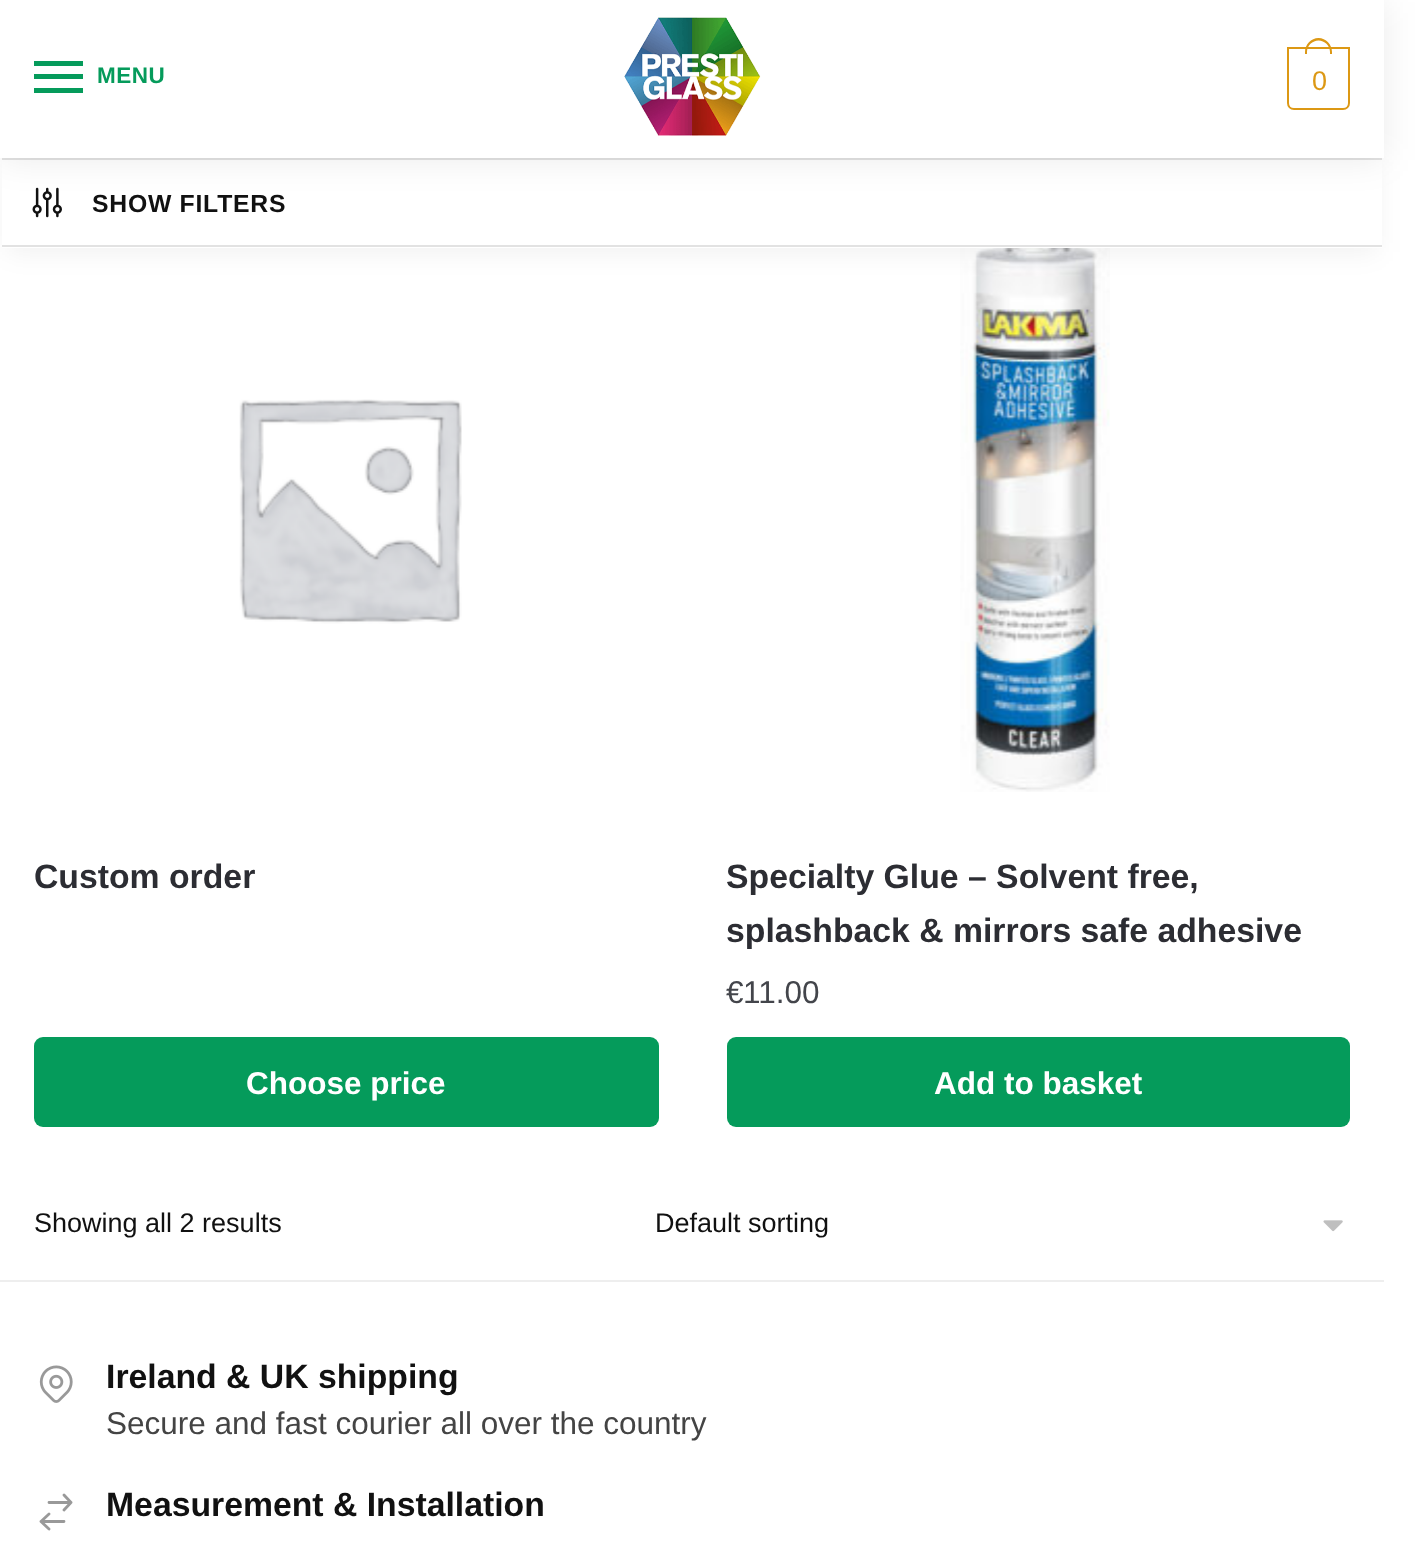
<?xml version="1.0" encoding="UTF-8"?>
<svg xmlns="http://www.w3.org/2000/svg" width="1416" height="1551">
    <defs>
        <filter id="blur1" x="-50%" y="-200%" width="200%" height="500%"><feGaussianBlur stdDeviation="13.5"/></filter>
        <filter id="blur2" x="-50%" y="-200%" width="200%" height="500%"><feGaussianBlur stdDeviation="17"/></filter>
    </defs>
    <rect width="100%" height="100%" fill="#FFFFFF"/>
    <image x="960" y="248" width="150" height="544" href="img_04.png"/>
    <rect x="7" y="171" width="1370" height="81" fill="#000000" fill-opacity="0.06" filter="url(#blur1)"/>
    <rect x="2" y="160" width="1380" height="88" fill="#FFFFFF"/>
    <rect x="2" y="158" width="1380" height="2" fill="#E2E2E2"/>
    <image x="32" y="187" width="30" height="31" href="img_02.png"/>
    <rect x="0" y="2" width="1384" height="158" fill="#000000" fill-opacity="0.08" filter="url(#blur2)"/>
    <rect x="0" y="0" width="1384" height="158" fill="#FFFFFF"/>
    <rect x="34" y="61" width="49" height="5" fill="#059B5B"/>
    <rect x="34" y="74" width="49" height="5" fill="#059B5B"/>
    <text x="97" y="83" font-family="Liberation Sans" font-size="22.5" font-weight="700" letter-spacing="0.5" fill="#059B5B">MENU</text>
    <rect x="34" y="88" width="49" height="5" fill="#059B5B"/>
    <image x="624" y="17" width="137" height="119" href="img_01.png"/>
    <path d="M 1288 48 H 1349 V 103 C 1349 106.5 1346.5 109 1343 109 H 1294 C 1290.5 109 1288 106.5 1288 103 Z" fill="none" stroke="#DC9814" stroke-width="2"/>
    <path d="M 1318.5 38 C 1326 38 1332 44.5 1332 52 V 54 H 1305 V 52 C 1305 44.5 1311 38 1318.5 38 Z M 1318.5 40.5 C 1324.5 40.5 1330 45.5 1330 52 V 54 H 1307 V 52 C 1307 45.5 1312.5 40.5 1318.5 40.5 Z" fill="#DC9814" fill-rule="evenodd"/>
    <text x="1312" y="90" font-family="Liberation Sans" font-size="27" letter-spacing="-2" fill="#DC9814">0</text>
    <rect x="2" y="245" width="1380" height="2" fill="#E2E2E2"/>
    <text x="92" y="212" font-family="Liberation Sans" font-size="24.75" font-weight="700" letter-spacing="0.75" fill="#111111">SHOW FILTERS</text>
    <image x="239" y="399" width="223" height="225" href="img_03.png"/>
    <text x="34" y="888" font-family="Liberation Sans" font-size="33.75" font-weight="700" fill="#2C2D33">Custom order</text>
    <rect x="34" y="1037" width="625" height="90" rx="9" fill="#059B5B"/>
    <text x="246" y="1094" font-family="Liberation Sans" font-size="31.5" font-weight="700" fill="#FFFFFF">Choose price</text>
    <text font-family="Liberation Sans" font-size="33.75" font-weight="700" fill="#2C2D33">
        <tspan x="726" y="888">Specialty Glue – Solvent free,</tspan>
        <tspan x="726" y="942">splashback &amp; mirrors safe adhesive</tspan>
    </text>
    <text x="726" y="1003" font-family="Liberation Sans" font-size="31.5" fill="#43454B">€</text>
    <text x="743" y="1003" font-family="Liberation Sans" font-size="31.5" fill="#43454B">11.00</text>
    <rect x="727" y="1037" width="623" height="90" rx="9" fill="#059B5B"/>
    <text x="934" y="1094" font-family="Liberation Sans" font-size="31.5" font-weight="700" fill="#FFFFFF">Add to basket</text>
    <text x="34" y="1232" font-family="Liberation Sans" font-size="27" fill="#111111">Showing all 2 results</text>
    <image x="1323" y="1220" width="20" height="12" href="img_05.png"/>
    <text x="655" y="1232" font-family="Liberation Sans" font-size="27" fill="#111111">Default sorting</text>
    <rect x="0" y="1280" width="1384" height="2" fill="#EEEEEE"/>
    <text x="106" y="1388" font-family="Liberation Sans" font-size="33.75" font-weight="700" fill="#111111">Ireland &amp; UK shipping</text>
    <image x="39" y="1365" width="34" height="38" href="img_06.png"/>
    <text x="106" y="1434" font-family="Liberation Sans" font-size="31.5" fill="#444444">Secure and fast courier all over the country</text>
    <path d="M 49 1502.5 H 71 M 71 1502.5 L 64 1495 M 71 1502.5 L 64 1510 M 64 1521.5 H 41 M 41 1521.5 L 49 1529 M 41 1521.5 L 49 1514" fill="none" stroke="#999999" stroke-width="2.8" stroke-linecap="round" stroke-linejoin="round"/>
    <text x="106" y="1516" font-family="Liberation Sans" font-size="33.75" font-weight="700" fill="#111111">Measurement &amp; Installation</text>
</svg>
